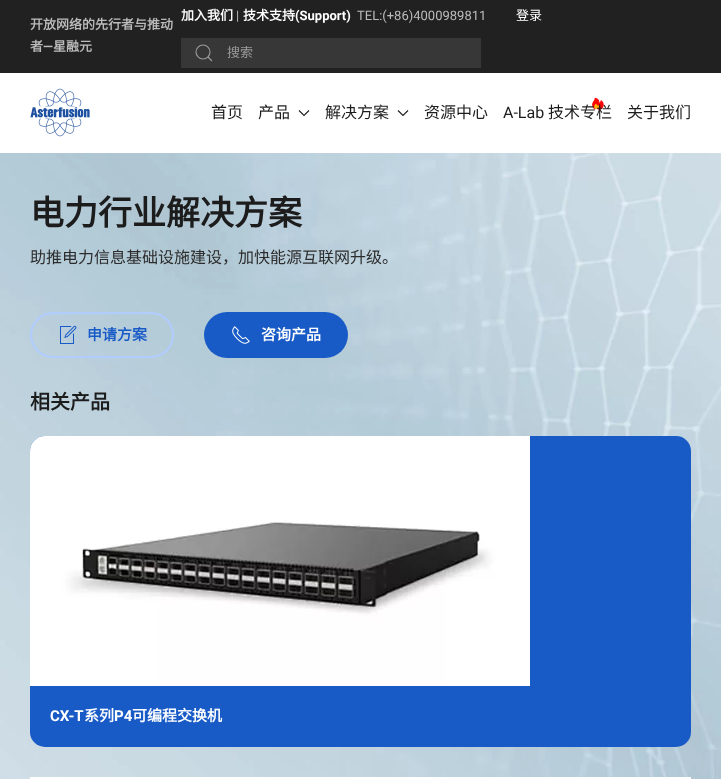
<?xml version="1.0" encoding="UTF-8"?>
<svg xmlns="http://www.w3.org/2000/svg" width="721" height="779">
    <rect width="100%" height="100%" fill="#FFFFFF"/>
    <rect x="0" y="0" width="721" height="73" fill="#212121"/>
    <text font-family="Noto Sans CJK SC" font-size="13" font-weight="700" fill="#BCBCBC">
        <tspan x="30" y="29">开放网络的先行者与推动</tspan>
        <tspan x="30" y="51">者</tspan>
    </text>
    <text x="43" y="51" font-family="Roboto" font-size="13" font-weight="700" fill="#BCBCBC">—</text>
    <text x="53" y="51" font-family="Noto Sans CJK SC" font-size="13" font-weight="700" fill="#BCBCBC">星融元</text>
    <text x="181" y="20" font-family="Noto Sans CJK SC" font-size="13" font-weight="700" fill="#FFFFFF">加入我们</text>
    <text x="236" y="20" font-family="Roboto" font-size="13" fill="#BCBCBC">|</text>
    <text x="243" y="20" font-family="Noto Sans CJK SC" font-size="13" font-weight="700" fill="#FFFFFF">技术支持</text>
    <text x="295" y="20" font-family="Roboto" font-size="13" font-weight="700" fill="#FFFFFF">(Support)</text>
    <text x="357" y="20" font-family="Roboto" font-size="13" fill="#BCBCBC">TEL:(+86)4000989811</text>
    <text x="516" y="20" font-family="Noto Sans CJK SC" font-size="13" fill="#FFFFFF">登录</text>
    <rect x="181" y="38" width="300" height="30" fill="#373737"/>
    <circle cx="203" cy="52" r="7" fill="none" stroke="#9B9B9B" stroke-width="1.1"/>
    <path d="M 208 57 L 212 61 Z" fill="none" stroke="#FFFFFF" stroke-opacity="0.5" stroke-width="1.1"/>
    <text x="227" y="57" font-family="Noto Sans CJK SC" font-size="13" fill="#9B9B9B">搜索</text>
    <image x="30" y="88" width="60" height="49" href="img_01.png"/>
    <image x="592" y="97" width="12" height="13" href="img_02.png"/>
    <text x="211" y="118" font-family="Noto Sans CJK SC" font-size="16" fill="#1C1C1C">首页</text>
    <text x="258" y="118" font-family="Noto Sans CJK SC" font-size="16" fill="#1C1C1C">产品</text>
    <path d="M 299 110.5 L 304 115.5 L 309 110.5" fill="none" stroke="#1C1C1C" stroke-width="1.1"/>
    <text x="325" y="118" font-family="Noto Sans CJK SC" font-size="16" fill="#1C1C1C">解决方案</text>
    <path d="M 398 110.5 L 403 115.5 L 408 110.5" fill="none" stroke="#1C1C1C" stroke-width="1.1"/>
    <text x="424" y="118" font-family="Noto Sans CJK SC" font-size="16" fill="#1C1C1C">资源中心</text>
    <text x="503" y="118" font-family="Roboto" font-size="16" fill="#1C1C1C">A-Lab</text>
    <text x="548" y="118" font-family="Noto Sans CJK SC" font-size="16" fill="#1C1C1C">技术专栏</text>
    <text x="627" y="118" font-family="Noto Sans CJK SC" font-size="16" fill="#1C1C1C">关于我们</text>
    <image x="0" y="153" width="721" height="626" href="img_03.png"/>
    <text x="30" y="225" font-family="Noto Sans CJK SC" font-size="34" font-weight="700" fill="#1C1C1C">电力行业解决方案</text>
    <text x="30" y="263" font-family="Noto Sans CJK SC" font-size="16" fill="#2C2C2C">助推电力信息基础设施建设，加快能源互联网升级。</text>
    <rect x="31" y="313" width="142" height="44" rx="22" fill="none" stroke="#B1CDFF" stroke-width="2"/>
    <image x="60" y="325" width="17" height="19" href="img_04.png"/>
    <text x="87" y="340" font-family="Noto Sans CJK SC" font-size="15" font-weight="700" fill="#185BC7">申请方案</text>
    <rect x="204" y="312" width="144" height="46" rx="23" fill="#185BC7"/>
    <image x="232" y="326" width="18" height="18" href="img_05.png"/>
    <text x="261" y="340" font-family="Noto Sans CJK SC" font-size="15" font-weight="700" fill="#FFFFFF">咨询产品</text>
    <text x="30" y="409" font-family="Noto Sans CJK SC" font-size="20" font-weight="700" fill="#1C1C1C">相关产品</text>
    <rect x="30" y="436" width="661" height="311" rx="15" fill="#185BC7"/>
    <image x="30" y="436" width="500" height="250" href="img_06.png"/>
    <text x="50" y="721" font-family="Roboto" font-size="15" font-weight="700" fill="#FFFFFF">CX-T</text>
    <text x="84" y="721" font-family="Noto Sans CJK SC" font-size="15" font-weight="700" fill="#FFFFFF">系列</text>
    <text x="114" y="721" font-family="Roboto" font-size="15" font-weight="700" fill="#FFFFFF">P4</text>
    <text x="132" y="721" font-family="Noto Sans CJK SC" font-size="15" font-weight="700" fill="#FFFFFF">可编程交换机</text>
    <rect x="30" y="777" width="661" height="2" fill="#FFFFFF"/>
</svg>
